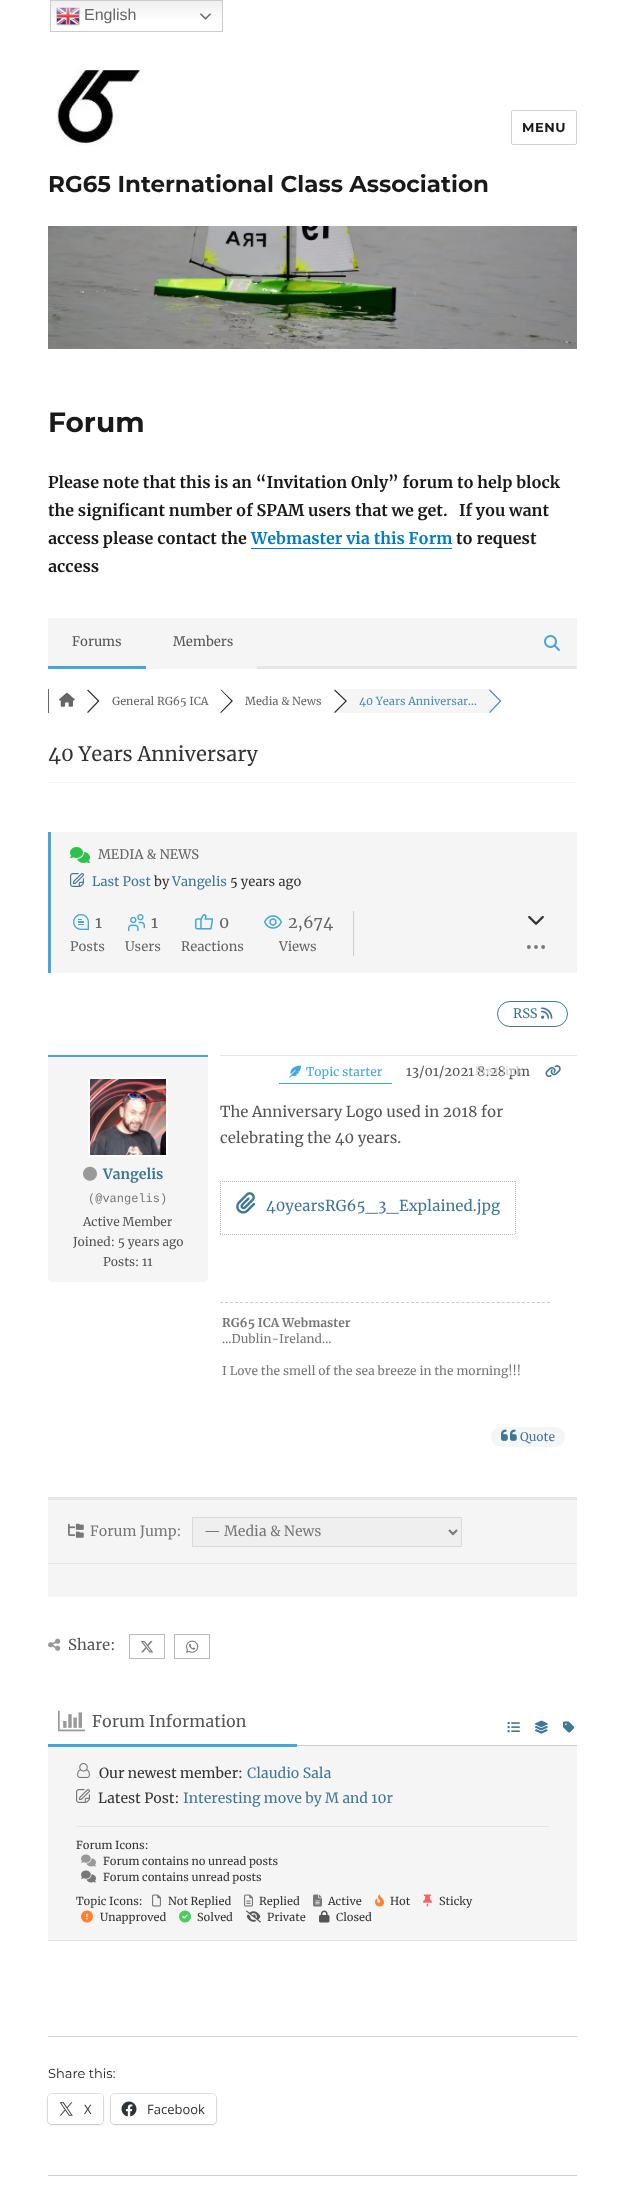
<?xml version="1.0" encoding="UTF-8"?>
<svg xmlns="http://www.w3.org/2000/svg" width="625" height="2193">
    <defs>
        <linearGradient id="g1" gradientUnits="userSpaceOnUse" x1="137" y1="0" x2="137" y2="32"><stop offset="0" stop-color="#EFEFEF"/><stop offset="0.7" stop-color="#FFFFFF"/></linearGradient>
        <filter id="blur1" x="-50%" y="-200%" width="200%" height="500%"><feGaussianBlur stdDeviation="1"/></filter>
    </defs>
    <rect width="100%" height="100%" fill="#FFFFFF"/>
    <rect x="51" y="1" width="171" height="18" fill="url(#g1)"/>
    <rect x="50.5" y="0.5" width="172" height="31" fill="none" stroke="#CCCCCC"/>
    <image x="56" y="7" width="24" height="19" href="img_01.png"/>
    <text x="84" y="20" font-family="Liberation Sans" font-size="16" fill="#666666">English</text>
    <image x="200" y="13" width="11" height="7" href="img_02.png"/>
    <rect x="511.5" y="110.5" width="65" height="34" rx="1.5" fill="none" stroke="#D1D1D1"/>
    <text x="522" y="132" font-family="Montserrat" font-size="13" font-weight="100" letter-spacing="0.5" fill="#1A1A1A">MENU</text>
    <image x="56" y="65" width="88" height="81" href="img_03.png"/>
    <text x="48" y="192" font-family="Montserrat" font-size="23" font-weight="100" fill="#1A1A1A">RG65 International Class Association</text>
    <image x="48" y="226" width="529" height="123" href="img_04.png"/>
    <text x="48" y="432" font-family="Montserrat" font-size="28" font-weight="100" fill="#1A1A1A">Forum</text>
    <text font-family="Merriweather" font-size="16" font-weight="700" fill="#1A1A1A" xml:space="preserve"><tspan x="48" y="488">Please note that this is an “Invitation Only” forum to help block</tspan><tspan x="48" y="516">the significant number of SPAM users that we get.   If you want</tspan><tspan x="48" y="544">access please contact the</tspan></text>
    <text x="251" y="544" font-family="Merriweather" font-size="16" font-weight="700" fill="#007ACC">Webmaster via this Form</text>
    <text x="456" y="544" font-family="Merriweather" font-size="16" font-weight="700" fill="#1A1A1A">to request</text>
    <rect x="251" y="548" width="201" height="1" fill="#007ACC"/>
    <text x="48" y="572" font-family="Merriweather" font-size="16" font-weight="700" fill="#1A1A1A">access</text>
    <rect x="257" y="618" width="320" height="48" fill="#F5F5F5"/>
    <rect x="257" y="666" width="320" height="3" fill="#E6E6E6"/>
    <rect x="48" y="618" width="209" height="51" fill="#F5F5F5"/>
    <rect x="48" y="666" width="98" height="3" fill="#43A6DF"/>
    <text x="72" y="646" font-family="Merriweather" font-size="13" fill="#555555">Forums</text>
    <text x="173" y="646" font-family="Merriweather" font-size="13" fill="#555555">Members</text>
    <image x="544" y="635" width="16" height="16" href="img_05.png"/>
    <rect x="48" y="689" width="1" height="24" fill="#666666"/>
    <image x="59" y="692" width="16" height="15" href="img_06.png"/>
    <path d="M 88 689.5 L 87 690.5 L 97.5 701 L 87 712 L 88 713 L 99.5 701 Z" fill="#333333"/>
    <path d="M 86 689.5 L 97.5 701 L 86 713 L 74 701 Z" fill="#FFFFFF"/>
    <text x="112" y="705" font-family="Merriweather" font-size="11" fill="#666666">General RG65 ICA</text>
    <path d="M 221 689.5 L 220.5 690 L 231 701 L 220 712 L 221 713 L 233 701 Z" fill="#333333"/>
    <path d="M 219.5 689.5 L 231 701 L 219.5 713 L 207.5 701 Z" fill="#FFFFFF"/>
    <text x="245" y="705" font-family="Merriweather" font-size="11" fill="#666666">Media &amp; News</text>
    <rect x="337" y="689" width="155" height="24" fill="#F5F5F5"/>
    <path d="M 335 689.5 L 334 690.5 L 345 701 L 334 712 L 335 713 L 347 701 Z" fill="#333333"/>
    <path d="M 333 689.5 L 345 701 L 333 713 L 321 701 Z" fill="#FFFFFF"/>
    <text x="359" y="705" font-family="Merriweather" font-size="11" fill="#4A8EB3">40 Years Anniversar...</text>
    <path d="M 490 689.5 L 489 690.5 L 499.5 701 L 489 712 L 490 713 L 501.5 701 Z" fill="#4A8EB3"/>
    <path d="M 488 689.5 L 499.5 701 L 488 713 L 476 701 Z" fill="#F5F5F5"/>
    <text x="48" y="761" font-family="Merriweather" font-size="20" fill="#333333">40 Years Anniversary</text>
    <rect x="48" y="782" width="529" height="1" fill="#F5F5F5"/>
    <rect x="51" y="832" width="526" height="141" fill="#F5F5F5"/>
    <rect x="48" y="832" width="3" height="141" fill="#43A6DF"/>
    <image x="70" y="847" width="20" height="16" href="img_07.png"/>
    <text x="98" y="859" font-family="Merriweather" font-size="13" fill="#666666">MEDIA &amp; NEWS</text>
    <image x="70" y="873" width="14" height="14" href="img_08.png"/>
    <text x="92" y="886" font-family="Merriweather" font-size="13" fill="#3F7796">Last Post</text>
    <text x="154" y="886" font-family="Merriweather" font-size="13" fill="#333333">by</text>
    <text x="172" y="886" font-family="Merriweather" font-size="13" fill="#3F7796">Vangelis</text>
    <text x="230" y="886" font-family="Merriweather" font-size="13" fill="#333333">5 years ago</text>
    <image x="73" y="914" width="16" height="16" href="img_09.png"/>
    <text x="95" y="928" font-family="Merriweather" font-size="16" fill="#666666">1</text>
    <text x="70" y="951" font-family="Merriweather" font-size="13" fill="#666666">Posts</text>
    <image x="128" y="914" width="17" height="17" href="img_10.png"/>
    <text x="151" y="928" font-family="Merriweather" font-size="16" fill="#666666">1</text>
    <text x="125" y="951" font-family="Merriweather" font-size="13" fill="#666666">Users</text>
    <image x="195" y="914" width="18" height="16" href="img_11.png"/>
    <text x="219" y="928" font-family="Merriweather" font-size="16" fill="#666666">0</text>
    <text x="181" y="951" font-family="Merriweather" font-size="13" fill="#666666">Reactions</text>
    <image x="264" y="915" width="18" height="14" href="img_12.png"/>
    <text x="288" y="928" font-family="Merriweather" font-size="16" fill="#666666">2,674</text>
    <text x="279" y="951" font-family="Merriweather" font-size="13" fill="#666666">Views</text>
    <rect x="353" y="911" width="1" height="45" fill="#CCCCCC"/>
    <image x="528" y="915" width="16" height="10" href="img_13.png"/>
    <circle cx="528.9" cy="947" r="1.9" fill="#777777"/>
    <circle cx="536" cy="947" r="1.9" fill="#777777"/>
    <circle cx="543.1" cy="947" r="1.9" fill="#777777"/>
    <rect x="497.5" y="1001.5" width="70" height="25" rx="12.5" fill="none" stroke="#3F7796"/>
    <text x="513" y="1018" font-family="Merriweather" font-size="13" fill="#3F7796">RSS</text>
    <image x="541" y="1007" width="12" height="12" href="img_14.png"/>
    <path d="M 48 1055 H 208 V 1277 C 208 1280 206 1282 203 1282 H 53 C 50 1282 48 1280 48 1277 Z" fill="#F5F5F5"/>
    <rect x="48" y="1055" width="160" height="2" fill="#43A6DF"/>
    <rect x="88" y="1077" width="80" height="80" fill="#FFFFFF"/>
    <image x="90" y="1079" width="76" height="76" href="img_15.png"/>
    <image x="83" y="1166" width="14" height="15" href="img_16.png"/>
    <text x="103" y="1179" font-family="Merriweather" font-size="14" font-weight="700" fill="#3F7796">Vangelis</text>
    <text x="88" y="1202" font-family="Liberation Mono" font-size="12" fill="#777777">(@vangelis)</text>
    <text x="83" y="1226" font-family="Merriweather" font-size="12" fill="#555555">Active Member</text>
    <text x="73" y="1246" font-family="Merriweather" font-size="12" fill="#555555">Joined: 5 years ago</text>
    <text x="103" y="1266" font-family="Merriweather" font-size="12" fill="#555555">Posts: 11</text>
    <rect x="220" y="1055" width="357" height="1" fill="#E6E6E6"/>
    <rect x="279" y="1083" width="113" height="1" fill="#43A6DF"/>
    <image x="289" y="1065" width="12" height="13" href="img_17.png"/>
    <text x="306" y="1076" font-family="Merriweather" font-size="12" fill="#43A6DF">Topic starter</text>
    <text x="406" y="1076" font-family="Merriweather" font-size="13" fill="#555555">13/01/2021 8:28 pm</text>
    <text x="475" y="1075" font-family="Merriweather" font-size="11" fill="#CFCFCF">Post link</text>
    <image x="545" y="1065" width="16" height="13" href="img_18.png"/>
    <text font-family="Merriweather" font-size="15" fill="#555555">
        <tspan x="220" y="1117">The Anniversary Logo used in 2018 for</tspan>
        <tspan x="220" y="1143">celebrating the 40 years.</tspan>
    </text>
    <path d="M 220 1181.5 H 516" fill="none" stroke="#BBBBBB" stroke-dasharray="1 1"/>
    <path d="M 515.5 1181 V 1235" fill="none" stroke="#BBBBBB" stroke-dasharray="1 1"/>
    <path d="M 220 1234.5 H 516" fill="none" stroke="#BBBBBB" stroke-dasharray="1 1"/>
    <path d="M 220.5 1181 V 1235" fill="none" stroke="#BBBBBB" stroke-dasharray="1 1"/>
    <image x="236" y="1192" width="20" height="22" href="img_19.png"/>
    <text x="266" y="1211" font-family="Merriweather" font-size="15" fill="#3F7796">40yearsRG65_3_Explained.jpg</text>
    <path d="M 220 1302.5 H 550" fill="none" stroke="#CCCCCC" stroke-dasharray="3 2.03"/>
    <text x="222" y="1327" font-family="Merriweather" font-size="12" font-weight="700" fill="#777777">RG65 ICA Webmaster</text>
    <text x="222" y="1343" font-family="Merriweather" font-size="12" fill="#777777">...Dublin-Ireland...</text>
    <text x="222" y="1375" font-family="Merriweather" font-size="12" fill="#777777">I Love the smell of the sea breeze in the morning!!!</text>
    <rect x="491" y="1427" width="74" height="20" rx="10" fill="#F5F5F5"/>
    <image x="501" y="1429" width="16" height="12" href="img_20.png"/>
    <text x="520" y="1441" font-family="Merriweather" font-size="12" fill="#3F7796">Quote</text>
    <rect x="48" y="1500" width="529" height="97" fill="#F5F5F5"/>
    <rect x="48" y="1497" width="529" height="3" fill="#E6E6E6"/>
    <image x="68" y="1523" width="16" height="15" href="img_21.png"/>
    <text x="90" y="1536" font-family="Merriweather" font-size="14" fill="#777777">Forum Jump:</text>
    <rect x="192.5" y="1517.5" width="269" height="29" fill="#EFEFEF" stroke="#DADADA"/>
    <path d="M 449 1530 L 453 1534 L 457 1530" fill="none" stroke="#777777" stroke-width="2"/>
    <text x="204" y="1536" font-family="Merriweather" font-size="14" fill="#777777">— Media &amp; News</text>
    <rect x="48" y="1563" width="529" height="1" fill="#E6E6E6"/>
    <image x="48" y="1638" width="13" height="13" href="img_22.png"/>
    <text x="68" y="1650" font-family="Merriweather" font-size="15" fill="#555555">Share:</text>
    <rect x="129.5" y="1634.5" width="35" height="24" fill="none" stroke="#BBBBBB"/>
    <image x="140" y="1641" width="14" height="12" href="img_23.png"/>
    <rect x="174.5" y="1634.5" width="35" height="24" fill="none" stroke="#BBBBBB"/>
    <image x="186" y="1640" width="13" height="13" href="img_24.png"/>
    <rect x="297" y="1745" width="280" height="1" fill="#CCCCCC"/>
    <rect x="48" y="1746" width="529" height="194" fill="#F5F5F5"/>
    <rect x="48" y="1744" width="249" height="3" fill="#43A6DF"/>
    <image x="58" y="1710" width="27" height="22" href="img_25.png"/>
    <text x="92" y="1727" font-family="Merriweather" font-size="16" fill="#555555">Forum Information</text>
    <image x="507" y="1721" width="13" height="12" href="img_26.png"/>
    <image x="534" y="1720" width="14" height="14" href="img_27.png"/>
    <image x="563" y="1721" width="12" height="12" href="img_28.png"/>
    <image x="77" y="1763" width="13" height="15" href="img_29.png"/>
    <text x="99" y="1778" font-family="Merriweather" font-size="14" fill="#333333">Our newest member:</text>
    <text x="247" y="1778" font-family="Merriweather" font-size="14" fill="#3F7796">Claudio Sala</text>
    <image x="76" y="1789" width="14" height="14" href="img_30.png"/>
    <text x="98" y="1803" font-family="Merriweather" font-size="14" fill="#333333">Latest Post:</text>
    <text x="183" y="1803" font-family="Merriweather" font-size="14" fill="#3F7796">Interesting move by M and 10r</text>
    <rect x="76" y="1826" width="473" height="1" fill="#E6E6E6"/>
    <text x="76" y="1849" font-family="Merriweather" font-size="11" fill="#333333">Forum Icons:</text>
    <image x="81" y="1854" width="15" height="13" href="img_31.png"/>
    <text x="103" y="1865" font-family="Merriweather" font-size="11" fill="#333333">Forum contains no unread posts</text>
    <image x="81" y="1870" width="15" height="13" href="img_32.png"/>
    <text x="103" y="1881" font-family="Merriweather" font-size="11" fill="#333333">Forum contains unread posts</text>
    <text x="76" y="1905" font-family="Merriweather" font-size="11" fill="#333333">Topic Icons:</text>
    <image x="152" y="1894" width="9" height="13" href="img_33.png"/>
    <text x="168" y="1905" font-family="Merriweather" font-size="11" fill="#333333">Not Replied</text>
    <image x="244" y="1894" width="9" height="13" href="img_34.png"/>
    <text x="259" y="1905" font-family="Merriweather" font-size="11" fill="#333333">Replied</text>
    <image x="313" y="1894" width="9" height="13" href="img_35.png"/>
    <text x="328" y="1905" font-family="Merriweather" font-size="11" fill="#333333">Active</text>
    <image x="375" y="1894" width="9" height="13" href="img_36.png"/>
    <text x="390" y="1905" font-family="Merriweather" font-size="11" fill="#333333">Hot</text>
    <image x="423" y="1894" width="9" height="13" href="img_37.png"/>
    <text x="439" y="1905" font-family="Merriweather" font-size="11" fill="#333333">Sticky</text>
    <image x="81" y="1910" width="12" height="13" href="img_38.png"/>
    <text x="100" y="1921" font-family="Merriweather" font-size="11" fill="#333333">Unapproved</text>
    <image x="179" y="1910" width="12" height="13" href="img_39.png"/>
    <text x="197" y="1921" font-family="Merriweather" font-size="11" fill="#333333">Solved</text>
    <image x="246" y="1910" width="15" height="13" href="img_40.png"/>
    <text x="267" y="1921" font-family="Merriweather" font-size="11" fill="#333333">Private</text>
    <image x="319" y="1910" width="11" height="13" href="img_41.png"/>
    <text x="336" y="1921" font-family="Merriweather" font-size="11" fill="#333333">Closed</text>
    <rect x="48" y="1940" width="529" height="1" fill="#E6E6E6"/>
    <rect x="48" y="2036" width="529" height="1" fill="#D1D1D1"/>
    <text x="48" y="2078" font-family="'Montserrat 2'" font-size="13" font-weight="100" fill="#1A1A1A">Share this:</text>
    <rect x="47.5" y="2093.5" width="56" height="31" rx="4.5" fill="none" stroke="#E0E0E0"/>
    <rect x="48" y="2095" width="55" height="30" rx="4" fill="#000000" fill-opacity="0.12" filter="url(#blur1)"/>
    <rect x="48" y="2094" width="55" height="30" rx="4" fill="#FFFFFF"/>
    <image x="59" y="2102" width="14" height="14" href="img_42.png"/>
    <text x="84" y="2114" font-family="Open Sans" font-size="13" fill="#2C3338">X</text>
    <rect x="110.5" y="2093.5" width="106" height="31" rx="4.5" fill="none" stroke="#E0E0E0"/>
    <rect x="111" y="2095" width="105" height="30" rx="4" fill="#000000" fill-opacity="0.12" filter="url(#blur1)"/>
    <rect x="111" y="2094" width="105" height="30" rx="4" fill="#FFFFFF"/>
    <image x="121" y="2101" width="16" height="16" href="img_43.png"/>
    <text x="147" y="2114" font-family="Open Sans" font-size="13" fill="#2C3338">Facebook</text>
    <rect x="48" y="2175" width="529" height="1" fill="#D1D1D1"/>
</svg>
